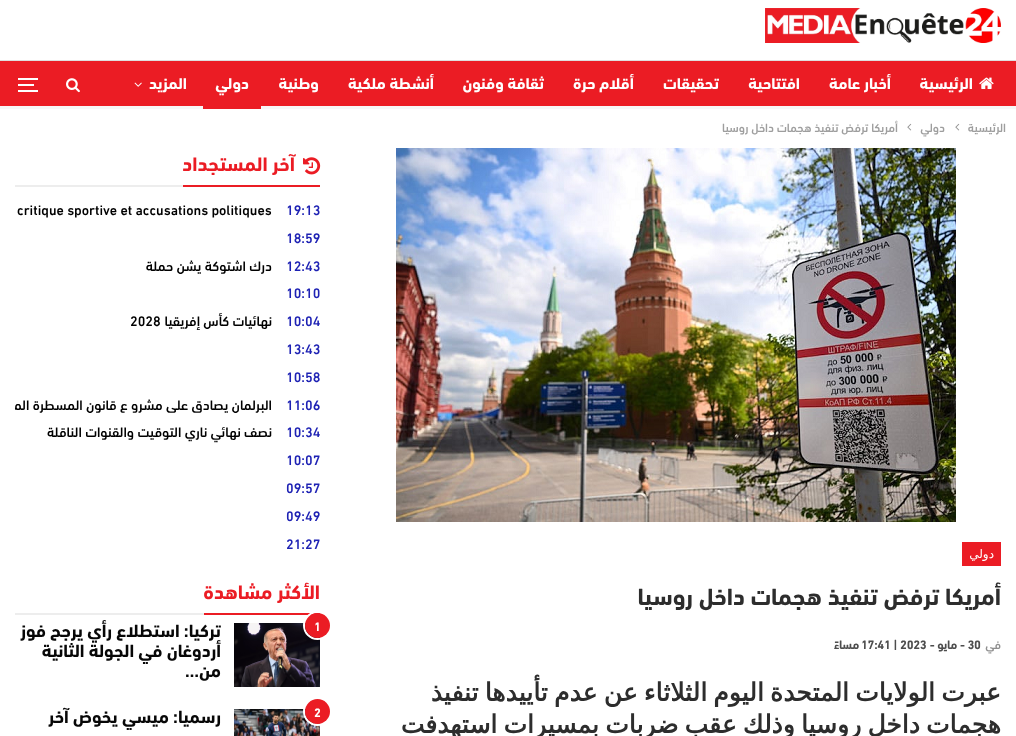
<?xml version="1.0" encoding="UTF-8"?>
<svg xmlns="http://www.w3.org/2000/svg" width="1016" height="736">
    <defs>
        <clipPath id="clip1"><rect x="15" y="390" width="305" height="27"/></clipPath>
    </defs>
    <rect width="100%" height="100%" fill="#FFFFFF"/>
    <image x="765" y="8" width="236" height="35" href="img_01.png"/>
    <rect x="0" y="61" width="1016" height="45" fill="#EB1C24"/>
    <rect x="0" y="60" width="1016" height="1" fill="#DEDEDE"/>
    <rect x="0" y="106" width="1016" height="3" fill="#F7F7F7"/>
    <image x="979" y="77" width="15" height="12" href="img_02.png"/>
    <text x="973" y="89" font-family="'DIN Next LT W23'" font-size="16" font-weight="700" direction="rtl" fill="#FFFFFF">الرئيسية</text>
    <text x="891" y="89" font-family="'DIN Next LT W23'" font-size="16" font-weight="700" direction="rtl" fill="#FFFFFF">أخبار عامة</text>
    <text x="800" y="89" font-family="'DIN Next LT W23'" font-size="16" font-weight="700" direction="rtl" fill="#FFFFFF">افتتاحية</text>
    <text x="719" y="89" font-family="'DIN Next LT W23'" font-size="16" font-weight="700" direction="rtl" fill="#FFFFFF">تحقيقات</text>
    <text x="634" y="89" font-family="'DIN Next LT W23'" font-size="16" font-weight="700" direction="rtl" fill="#FFFFFF">أقلام حرة</text>
    <text x="544" y="89" font-family="'DIN Next LT W23'" font-size="16" font-weight="700" direction="rtl" fill="#FFFFFF">ثقافة وفنون</text>
    <text x="434" y="89" font-family="'DIN Next LT W23'" font-size="16" font-weight="700" direction="rtl" fill="#FFFFFF">أنشطة ملكية</text>
    <text x="319" y="89" font-family="'DIN Next LT W23'" font-size="16" font-weight="700" direction="rtl" fill="#FFFFFF">وطنية</text>
    <text x="249" y="89" font-family="'DIN Next LT W23'" font-size="16" font-weight="700" direction="rtl" fill="#FFFFFF">دولي</text>
    <rect x="203" y="106" width="58" height="3" fill="#EB1C24"/>
    <text x="187" y="89" font-family="'DIN Next LT W23'" font-size="16" font-weight="700" direction="rtl" fill="#FFFFFF">المزيد</text>
    <image x="134" y="82" width="8" height="5" href="img_03.png"/>
    <image x="66" y="78" width="14" height="15" href="img_04.png"/>
    <rect x="18" y="84" width="16" height="2" fill="#FFFFFF"/>
    <rect x="18" y="78" width="20" height="2" fill="#FFFFFF"/>
    <rect x="18" y="90" width="20" height="2" fill="#FFFFFF"/>
    <text x="1006" y="132" font-family="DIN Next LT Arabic" font-size="12" font-weight="500" direction="rtl" fill="#9E9E9E">الرئيسية</text>
    <image x="955" y="123" width="5" height="8" href="img_05.png"/>
    <text x="945" y="132" font-family="DIN Next LT Arabic" font-size="12" font-weight="500" direction="rtl" fill="#9E9E9E">دولي</text>
    <image x="907" y="123" width="5" height="8" href="img_05.png"/>
    <text x="898" y="132" font-family="DIN Next LT Arabic" font-size="12" font-weight="500" direction="rtl" fill="#9E9E9E">أمريكا ترفض تنفيذ هجمات داخل روسيا</text>
    <image x="396" y="148" width="560" height="374" href="img_06.png"/>
    <rect x="962" y="542" width="39" height="24" fill="#EB1C24"/>
    <text x="994" y="558" font-family="DejaVu Sans" font-size="12" direction="rtl" fill="#FFFFFF">دولي</text>
    <text x="1001" y="605" font-family="'DIN Next LT W23'" font-size="24" font-weight="700" direction="rtl" fill="#2D2D2D">أمريكا ترفض تنفيذ هجمات داخل روسيا</text>
    <text x="1001" y="649" font-family="DIN Next LT Arabic" font-size="12" font-weight="500" direction="rtl" fill="#8F8F8F">في</text>
    <text x="960" y="649" font-family="DIN Next LT Arabic" font-size="12" font-weight="700" fill="#4D4D4D">- 30</text>
    <text x="957" y="649" font-family="DIN Next LT Arabic" font-size="12" font-weight="700" direction="rtl" fill="#4D4D4D">مايو -</text>
    <text x="861" y="649" font-family="DIN Next LT Arabic" font-size="12" font-weight="700" fill="#4D4D4D">17:41 | 2023</text>
    <text x="859" y="649" font-family="DIN Next LT Arabic" font-size="12" font-weight="700" direction="rtl" fill="#4D4D4D">مساءً</text>
    <text font-family="DejaVu Sans" font-size="25" font-weight="700" direction="rtl" fill="#2D2D2D">
        <tspan x="1001" y="701" word-spacing="-1.75">عبرت الولايات المتحدة اليوم الثلاثاء عن عدم تأييدها تنفيذ</tspan>
        <tspan x="1001" y="733" word-spacing="-1.75">هجمات داخل روسيا وذلك عقب ضربات بمسيرات استهدفت</tspan>
    </text>
    <image x="303" y="157" width="18" height="18" href="img_07.png"/>
    <text x="295" y="171" font-family="'DIN Next LT W23'" font-size="20" font-weight="700" direction="rtl" fill="#EB1C24">آخر المستجداد</text>
    <rect x="183" y="185" width="137" height="2" fill="#EB1C24"/>
    <rect x="15" y="185" width="168" height="2" fill="#EDEDED"/>
    <text x="286" y="215" font-family="DIN Next LT Arabic" font-size="14" font-weight="500" fill="#1E22B4">19:13</text>
    <text x="17" y="215" font-family="DIN Next LT Arabic" font-size="14" font-weight="500" fill="#000000">critique sportive et accusations politiques</text>
    <text x="286" y="243" font-family="DIN Next LT Arabic" font-size="14" font-weight="500" fill="#1E22B4">18:59</text>
    <text x="286" y="271" font-family="DIN Next LT Arabic" font-size="14" font-weight="500" fill="#1E22B4">12:43</text>
    <text x="272" y="271" font-family="DIN Next LT Arabic" font-size="14" font-weight="500" direction="rtl" fill="#000000">درك اشتوكة يشن حملة</text>
    <text x="286" y="298" font-family="DIN Next LT Arabic" font-size="14" font-weight="500" fill="#1E22B4">10:10</text>
    <text x="286" y="326" font-family="DIN Next LT Arabic" font-size="14" font-weight="500" fill="#1E22B4">10:04</text>
    <text x="272" y="326" font-family="DIN Next LT Arabic" font-size="14" font-weight="500" direction="rtl" fill="#000000">نهائيات كأس إفريقيا</text>
    <text x="130" y="326" font-family="DIN Next LT Arabic" font-size="14" font-weight="500" fill="#000000">2028</text>
    <text x="286" y="354" font-family="DIN Next LT Arabic" font-size="14" font-weight="500" fill="#1E22B4">13:43</text>
    <text x="286" y="382" font-family="DIN Next LT Arabic" font-size="14" font-weight="500" fill="#1E22B4">10:58</text>
    <text x="286" y="410" font-family="DIN Next LT Arabic" font-size="14" font-weight="500" fill="#1E22B4">11:06</text>
    <g clip-path="url(#clip1)">
        <text x="272" y="410" font-family="DIN Next LT Arabic" font-size="14" font-weight="500" direction="rtl" fill="#000000">البرلمان يصادق على مشرو ع قانون المسطرة المدنية</text>
    </g>
    <text x="286" y="437" font-family="DIN Next LT Arabic" font-size="14" font-weight="500" fill="#1E22B4">10:34</text>
    <text x="272" y="437" font-family="DIN Next LT Arabic" font-size="14" font-weight="500" direction="rtl" fill="#000000">نصف نهائي ناري التوقيت والقنوات الناقلة</text>
    <text x="286" y="465" font-family="DIN Next LT Arabic" font-size="14" font-weight="500" fill="#1E22B4">10:07</text>
    <text x="286" y="493" font-family="DIN Next LT Arabic" font-size="14" font-weight="500" fill="#1E22B4">09:57</text>
    <text x="286" y="521" font-family="DIN Next LT Arabic" font-size="14" font-weight="500" fill="#1E22B4">09:49</text>
    <text x="286" y="549" font-family="DIN Next LT Arabic" font-size="14" font-weight="500" fill="#1E22B4">21:27</text>
    <text x="320" y="599" font-family="'DIN Next LT W23'" font-size="20" font-weight="700" direction="rtl" fill="#EB1C24">الأكثر مشاهدة</text>
    <rect x="204" y="613" width="116" height="2" fill="#EB1C24"/>
    <rect x="15" y="613" width="189" height="2" fill="#EDEDED"/>
    <image x="234" y="623" width="86" height="64" href="img_08.png"/>
    <circle cx="317.5" cy="625.5" r="13.5" fill="none" stroke="#FFFFFF" stroke-width="2"/>
    <circle cx="317.5" cy="625.5" r="12.5" fill="#EB1C24"/>
    <text x="314" y="631" font-family="DIN Next LT Arabic" font-size="12" font-weight="700" fill="#FFFFFF">1</text>
    <text font-family="'DIN Next LT W23'" font-size="18" font-weight="700" direction="rtl" fill="#070707">
        <tspan x="221" y="637">تركيا: استطلاع رأي يرجح فوز</tspan>
        <tspan x="221" y="657">أردوغان في الجولة الثانية</tspan>
        <tspan x="221" y="677">من…</tspan>
    </text>
    <image x="234" y="709" width="86" height="27" href="img_09.png"/>
    <circle cx="317.5" cy="711.5" r="13.5" fill="none" stroke="#FFFFFF" stroke-width="2"/>
    <circle cx="317.5" cy="711.5" r="12.5" fill="#EB1C24"/>
    <text x="314" y="717" font-family="DIN Next LT Arabic" font-size="12" font-weight="700" fill="#FFFFFF">2</text>
    <text x="221" y="723" font-family="'DIN Next LT W23'" font-size="18" font-weight="700" direction="rtl" fill="#070707">رسميا: ميسي يخوض آخر</text>
</svg>
